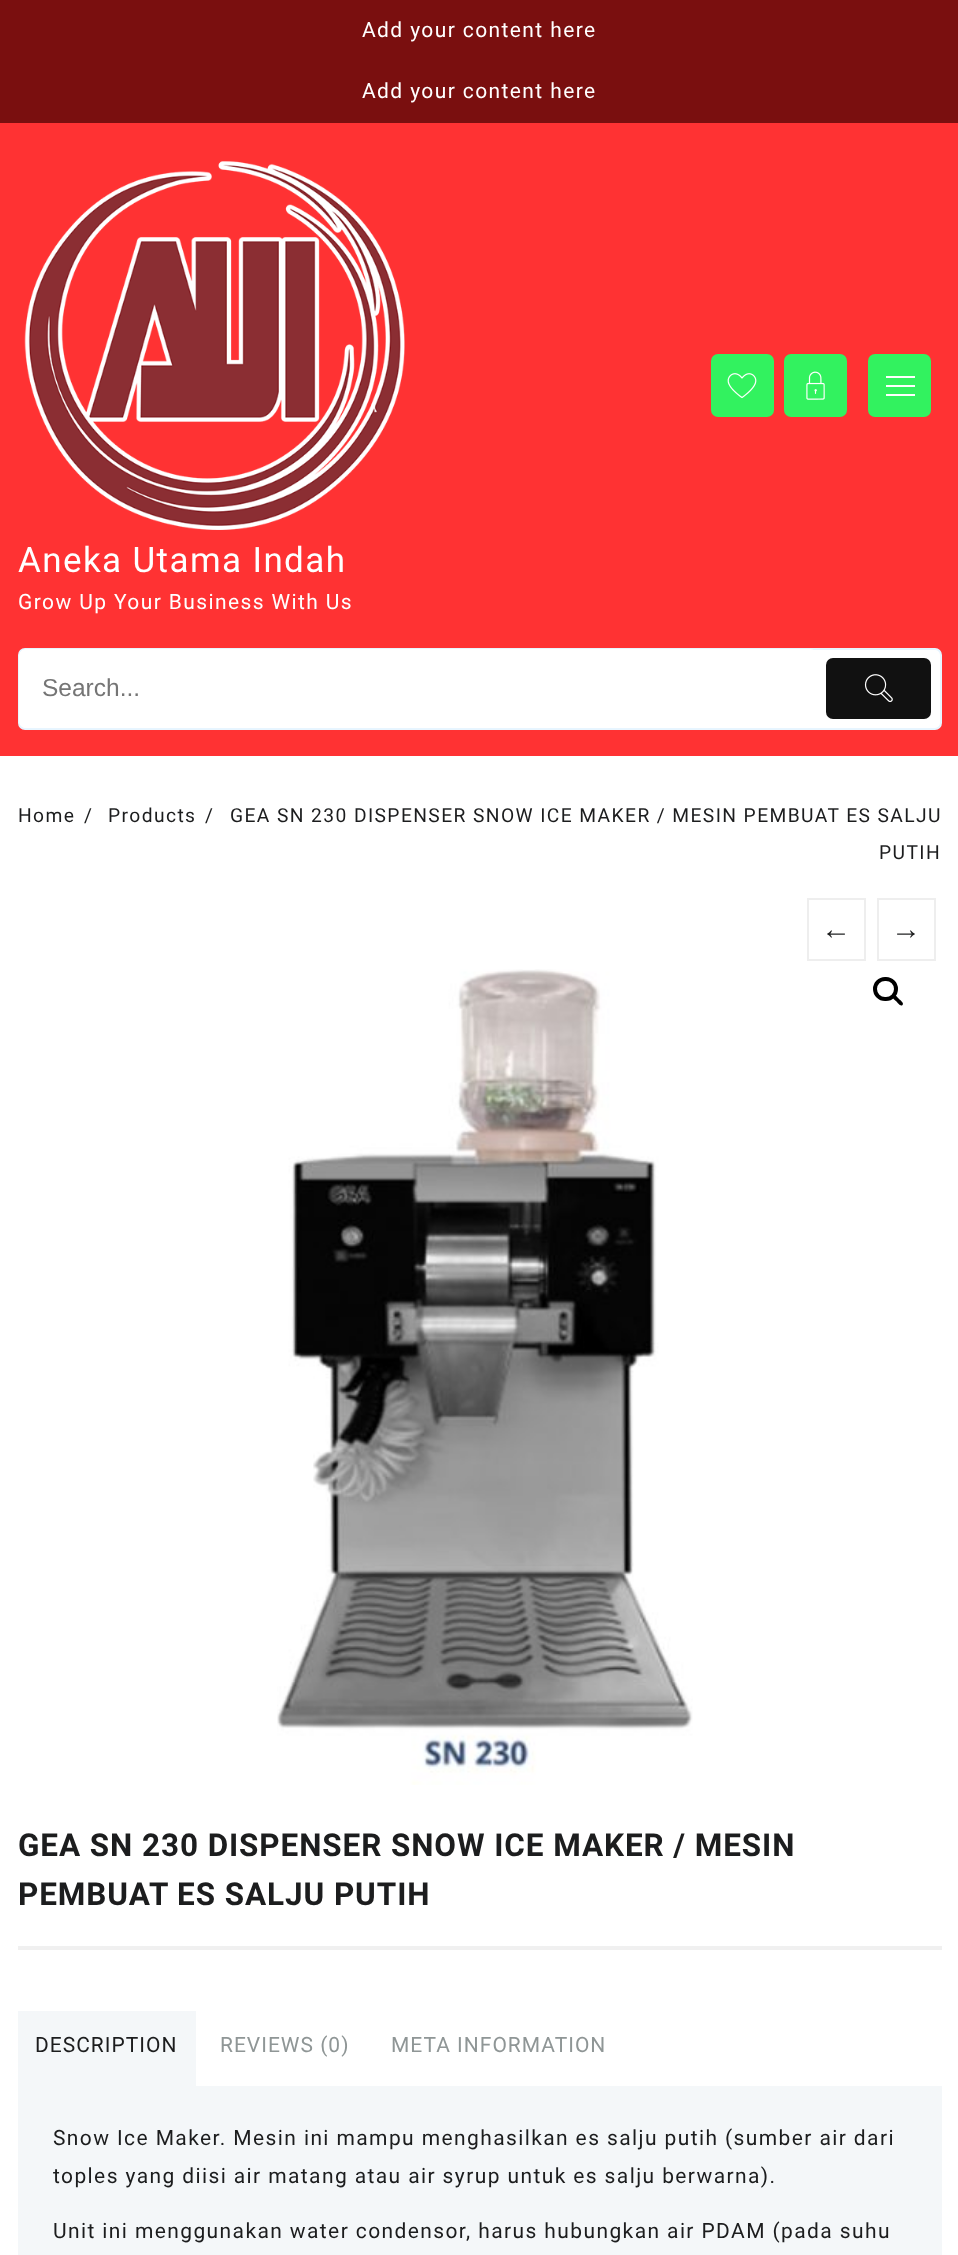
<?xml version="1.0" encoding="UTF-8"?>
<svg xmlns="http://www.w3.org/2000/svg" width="958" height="2255">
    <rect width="100%" height="100%" fill="#FFFFFF"/>
    <rect x="0" y="0" width="958" height="123" fill="#7A0F0F"/>
    <text x="362" y="37" font-family="Roboto" font-size="21" letter-spacing="1.4" fill="#FFFFFF">Add your content here</text>
    <text x="362" y="98" font-family="Roboto" font-size="21" letter-spacing="1.4" fill="#FFFFFF">Add your content here</text>
    <rect x="0" y="123" width="958" height="633" fill="#FF3233"/>
    <rect x="711" y="354" width="63" height="63" rx="7" fill="#32F25F"/>
    <image x="727" y="373" width="30" height="26" href="img_01.png"/>
    <rect x="784" y="354" width="63" height="63" rx="7" fill="#32F25F"/>
    <image x="806" y="371" width="19" height="29" href="img_02.png"/>
    <rect x="868" y="354" width="63" height="63" rx="7" fill="#32F25F"/>
    <rect x="886" y="376" width="29" height="2" fill="#FFFFFF"/>
    <rect x="886" y="385" width="29" height="2" fill="#FFFFFF"/>
    <rect x="886" y="394" width="29" height="2" fill="#FFFFFF"/>
    <image x="24" y="161" width="381" height="369" href="img_03.png"/>
    <text x="18" y="572" font-family="Roboto" font-size="35" letter-spacing="1.4" fill="#FFFFFF">Aneka Utama Indah</text>
    <text x="18" y="609" font-family="Roboto" font-size="21" letter-spacing="1.4" fill="#FFFFFF">Grow Up Your Business With Us</text>
    <rect x="19" y="649" width="922" height="80" rx="6" fill="#FFFFFF" stroke="#E7F5FF" stroke-width="2"/>
    <rect x="19" y="649" width="798" height="79" rx="7" fill="#FFFFFF"/>
    <text x="42" y="696" font-family="Liberation Sans" font-size="24.5" fill="#757575">Search...</text>
    <rect x="826" y="658" width="105" height="61" rx="7" fill="#111111"/>
    <image x="864" y="674" width="29" height="29" href="img_04.png"/>
    <text x="18" y="822" font-family="Roboto" font-size="19.25" letter-spacing="1.4" fill="#1C1D1E">Home</text>
    <text x="84" y="822" font-family="Roboto" font-size="19.25" letter-spacing="1.4" fill="#1C1D1E">/</text>
    <text x="108" y="822" font-family="Roboto" font-size="19.25" letter-spacing="1.4" fill="#1C1D1E">Products</text>
    <text x="205" y="822" font-family="Roboto" font-size="19.25" letter-spacing="1.4" fill="#1C1D1E">/</text>
    <text x="230" y="822" font-family="Roboto" font-size="19.25" letter-spacing="1.4" fill="#1C1D1E">GEA SN 230 DISPENSER SNOW ICE MAKER / MESIN PEMBUAT ES SALJU</text>
    <text x="879" y="859" font-family="Roboto" font-size="19.25" letter-spacing="1.4" fill="#1C1D1E">PUTIH</text>
    <rect x="808" y="899" width="57" height="61" fill="none" stroke="#EEEEEE" stroke-width="2"/>
    <text x="821" y="939" font-family="Liberation Sans" font-size="30" letter-spacing="1.4" fill="#1C1D1E">←</text>
    <rect x="878" y="899" width="57" height="61" fill="none" stroke="#EEEEEE" stroke-width="2"/>
    <text x="891" y="939" font-family="Liberation Sans" font-size="30" letter-spacing="1.4" fill="#1C1D1E">→</text>
    <rect x="18" y="1946" width="924" height="4" fill="#F0F0F0"/>
    <text font-family="Roboto" font-size="31.5" font-weight="700" letter-spacing="0.9" fill="#1C1D1E">
        <tspan x="18" y="1856">GEA SN 230 DISPENSER SNOW ICE MAKER / MESIN</tspan>
        <tspan x="18" y="1905">PEMBUAT ES SALJU PUTIH</tspan>
    </text>
    <rect x="18" y="2011" width="178" height="75" fill="#F4F7F9"/>
    <text x="35" y="2052" font-family="Roboto" font-size="21" letter-spacing="1" fill="#1C1D1E">DESCRIPTION</text>
    <text x="220" y="2052" font-family="Roboto" font-size="21" letter-spacing="1" fill="#8F9696">REVIEWS (0)</text>
    <text x="391" y="2052" font-family="Roboto" font-size="21" letter-spacing="1" fill="#8F9696">META INFORMATION</text>
    <rect x="18" y="2086" width="924" height="169" fill="#F4F7F9"/>
    <text font-family="Roboto" font-size="21" letter-spacing="1.4" fill="#1C1D1E">
        <tspan x="53" y="2145">Snow Ice Maker. Mesin ini mampu menghasilkan es salju putih (sumber air dari</tspan>
        <tspan x="53" y="2183">toples yang diisi air matang atau air syrup untuk es salju berwarna).</tspan>
    </text>
    <text x="53" y="2238" font-family="Roboto" font-size="21" letter-spacing="1.4" fill="#1C1D1E">Unit ini menggunakan water condensor, harus hubungkan air PDAM (pada suhu</text>
    <image x="277" y="969" width="416" height="816" href="img_05.png"/>
    <rect x="875" y="979" width="21" height="20" rx="10" fill="none" stroke="#000000" stroke-width="4"/>
    <path d="M 893 995.5 C 895 993.5 898 998 899 999 C 900 1000 904.5 1003 902.5 1005 C 900.5 1007 897.5 1002.5 896.5 1001.5 C 895.5 1000.5 891 997.5 893 995.5 Z" fill="#000000"/>
</svg>
